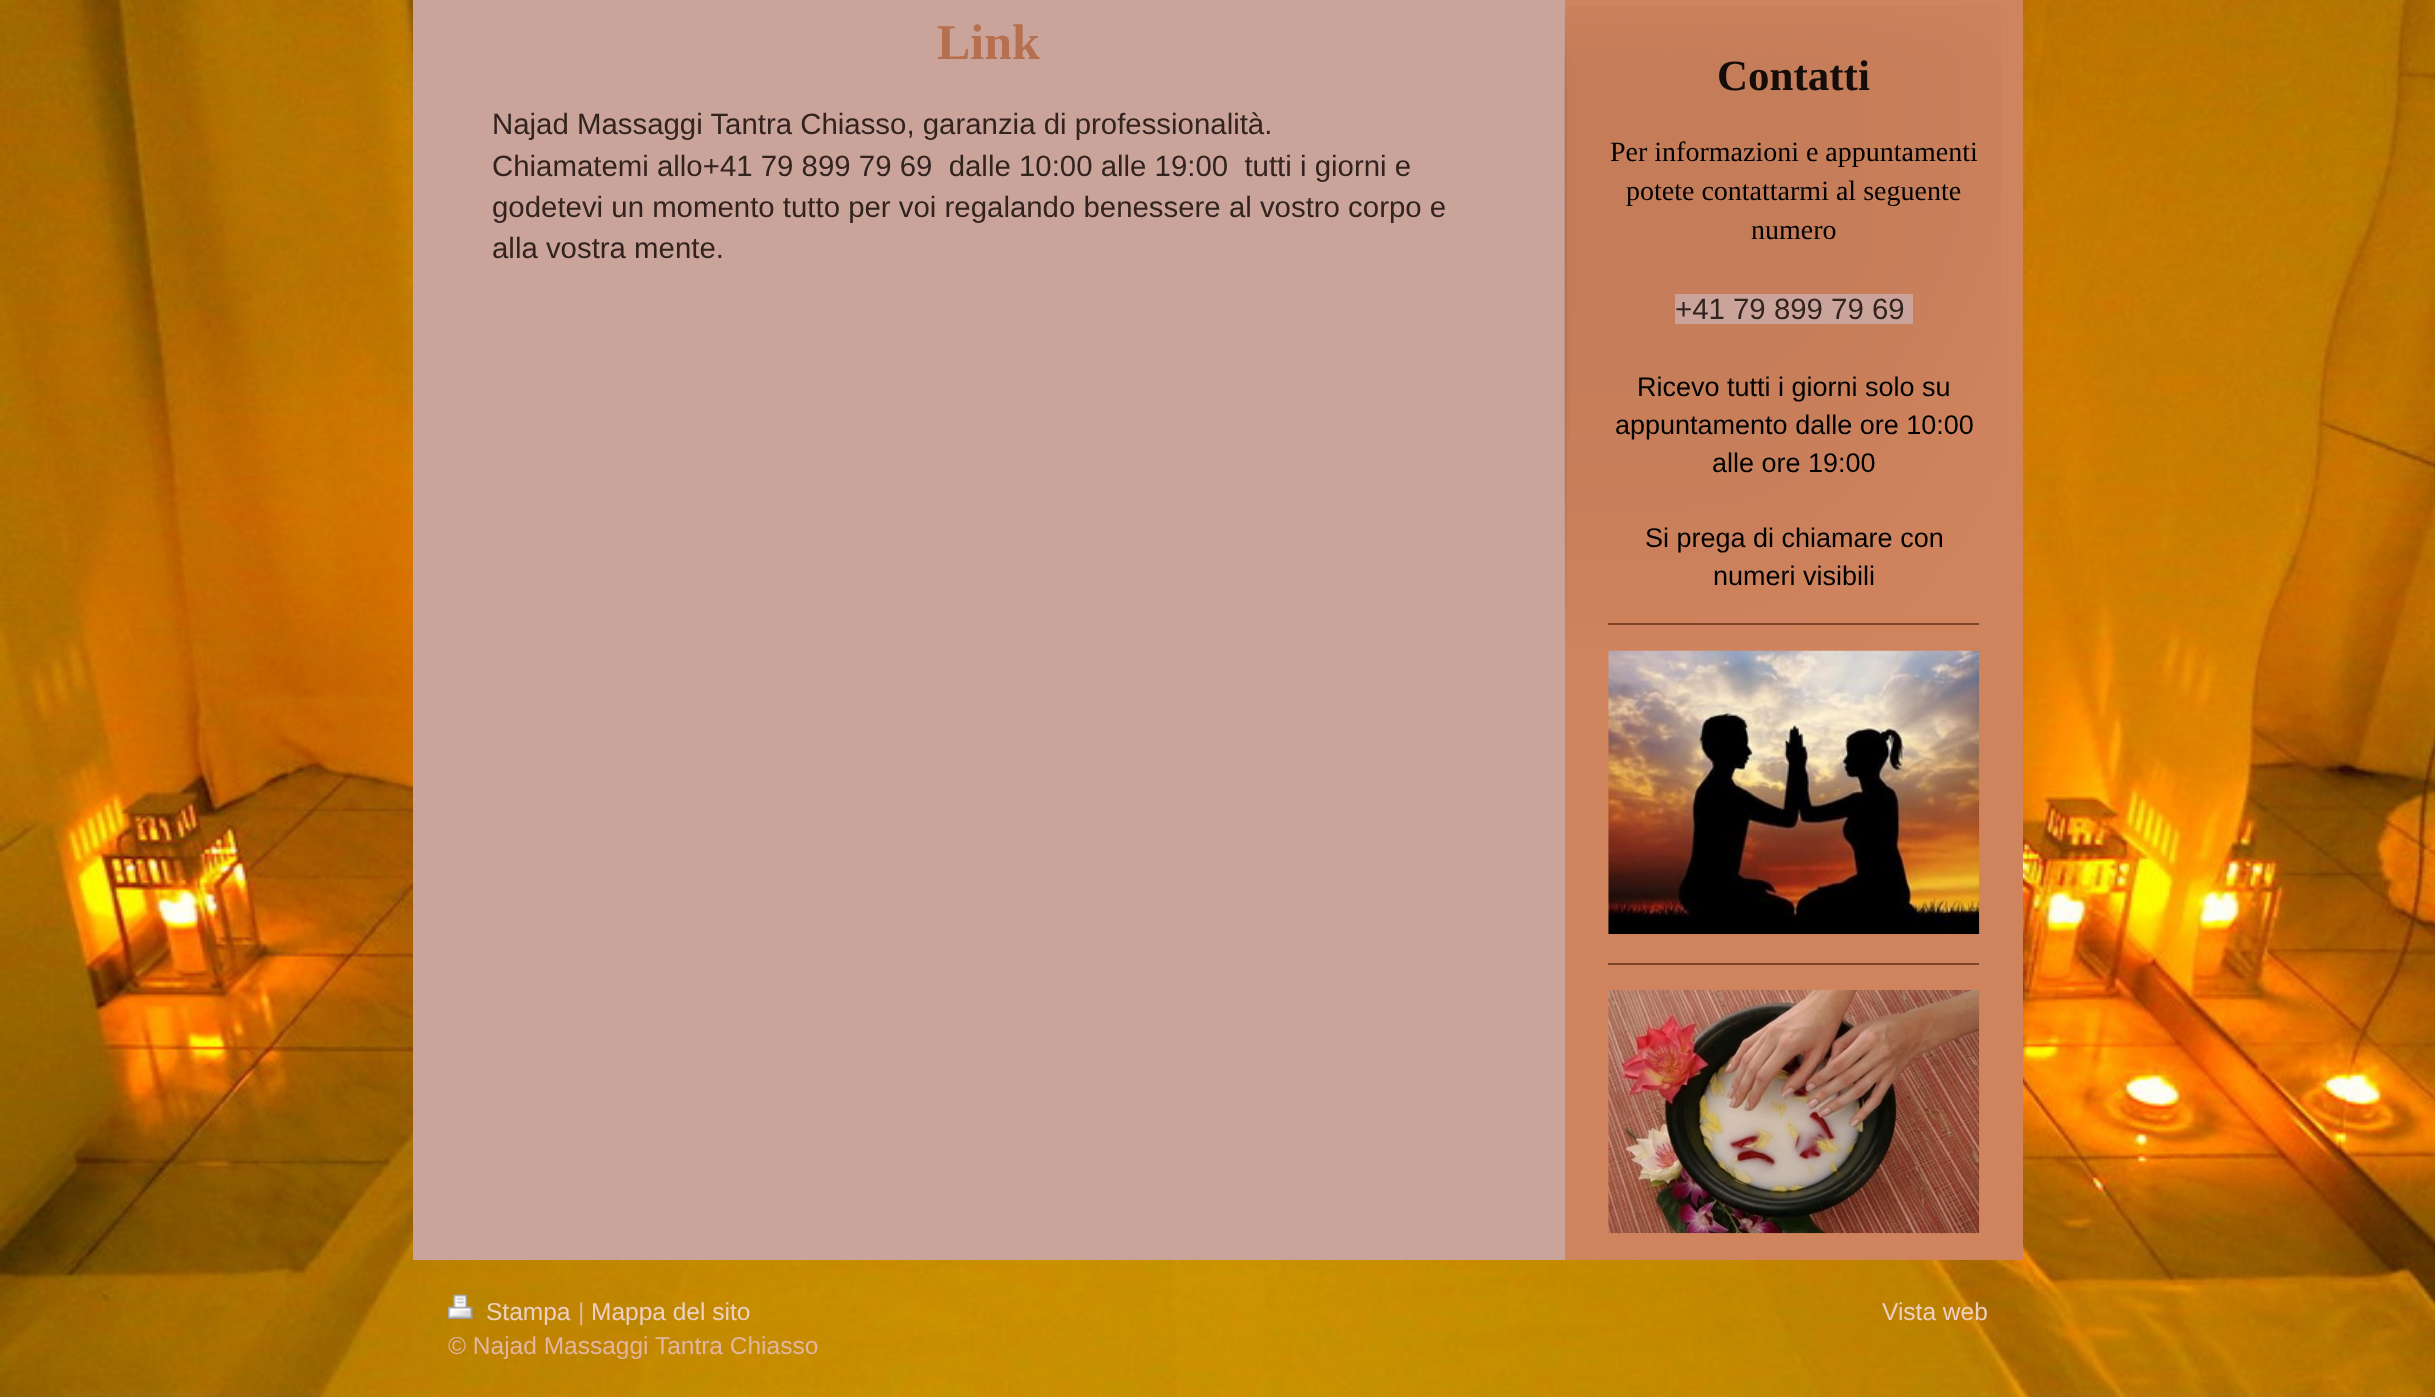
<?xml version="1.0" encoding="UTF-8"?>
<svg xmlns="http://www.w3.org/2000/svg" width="2435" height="1397">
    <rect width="100%" height="100%" fill="#FFFFFF"/>
    <image x="0" y="0" width="2435" height="1397" href="img_01.png"/>
    <rect x="413" y="0" width="1152" height="1260" fill="#CAA49A"/>
    <text x="937" y="59" font-family="Liberation Serif" font-size="50" font-weight="700" fill="#B66F4F">Link</text>
    <text font-family="Liberation Sans" font-size="29.4" fill="#32231F" xml:space="preserve"><tspan x="492" y="134">Najad Massaggi Tantra Chiasso, garanzia di professionalità.</tspan><tspan x="492" y="176">Chiamatemi allo+41 79 899 79 69  dalle 10:00 alle 19:00  tutti i giorni e</tspan><tspan x="492" y="217">godetevi un momento tutto per voi regalando benessere al vostro corpo e</tspan><tspan x="492" y="258">alla vostra mente.</tspan></text>
    <rect x="1565" y="0" width="458" height="1260" fill="#D0845E"/>
    <image x="1564" y="6" width="437" height="636" href="img_02.png"/>
    <text x="1717" y="90" font-family="Liberation Serif" font-size="43" font-weight="700" fill="#150D09">Contatti</text>
    <text x="1610" y="161" font-family="Liberation Serif" font-size="28" fill="#000000">Per informazioni e appuntamenti</text>
    <text x="1626" y="200" font-family="Liberation Serif" font-size="28" fill="#000000">potete contattarmi al seguente</text>
    <text x="1751" y="239" font-family="Liberation Serif" font-size="28" fill="#000000">numero</text>
    <rect x="1675" y="294" width="238" height="30" fill="#CAA49A"/>
    <text x="1675" y="319" font-family="Liberation Sans" font-size="29.4" fill="#32231F">+41 79 899 79 69</text>
    <text x="1637" y="396" font-family="Liberation Sans" font-size="27" fill="#000000">Ricevo tutti i giorni solo su</text>
    <text x="1615" y="434" font-family="Liberation Sans" font-size="27" fill="#000000">appuntamento dalle ore 10:00</text>
    <text x="1712" y="472" font-family="Liberation Sans" font-size="27" fill="#000000">alle ore 19:00</text>
    <text x="1645" y="547" font-family="Liberation Sans" font-size="27" fill="#000000">Si prega di chiamare con</text>
    <text x="1713" y="585" font-family="Liberation Sans" font-size="27" fill="#000000">numeri visibili</text>
    <rect x="1608" y="623" width="371" height="2" fill="#7D4428"/>
    <image x="1608" y="650" width="372" height="284" href="img_03.png"/>
    <rect x="1608" y="963" width="371" height="2" fill="#7D4428"/>
    <image x="1608" y="990" width="372" height="244" href="img_04.png"/>
    <image x="448" y="1294" width="25" height="25" href="img_05.png"/>
    <text x="486" y="1320" font-family="Liberation Sans" font-size="24.5" fill="#EDD0C2">Stampa</text>
    <text x="578" y="1320" font-family="Liberation Sans" font-size="24.5" fill="#E2B59F">|</text>
    <text x="591" y="1320" font-family="Liberation Sans" font-size="24.5" fill="#EDD0C2">Mappa del sito</text>
    <text x="448" y="1354" font-family="Liberation Sans" font-size="24.5" fill="#E2B59F">© Najad Massaggi Tantra Chiasso</text>
    <text x="1882" y="1320" font-family="Liberation Sans" font-size="24.5" fill="#EDD0C2">Vista web</text>
</svg>
